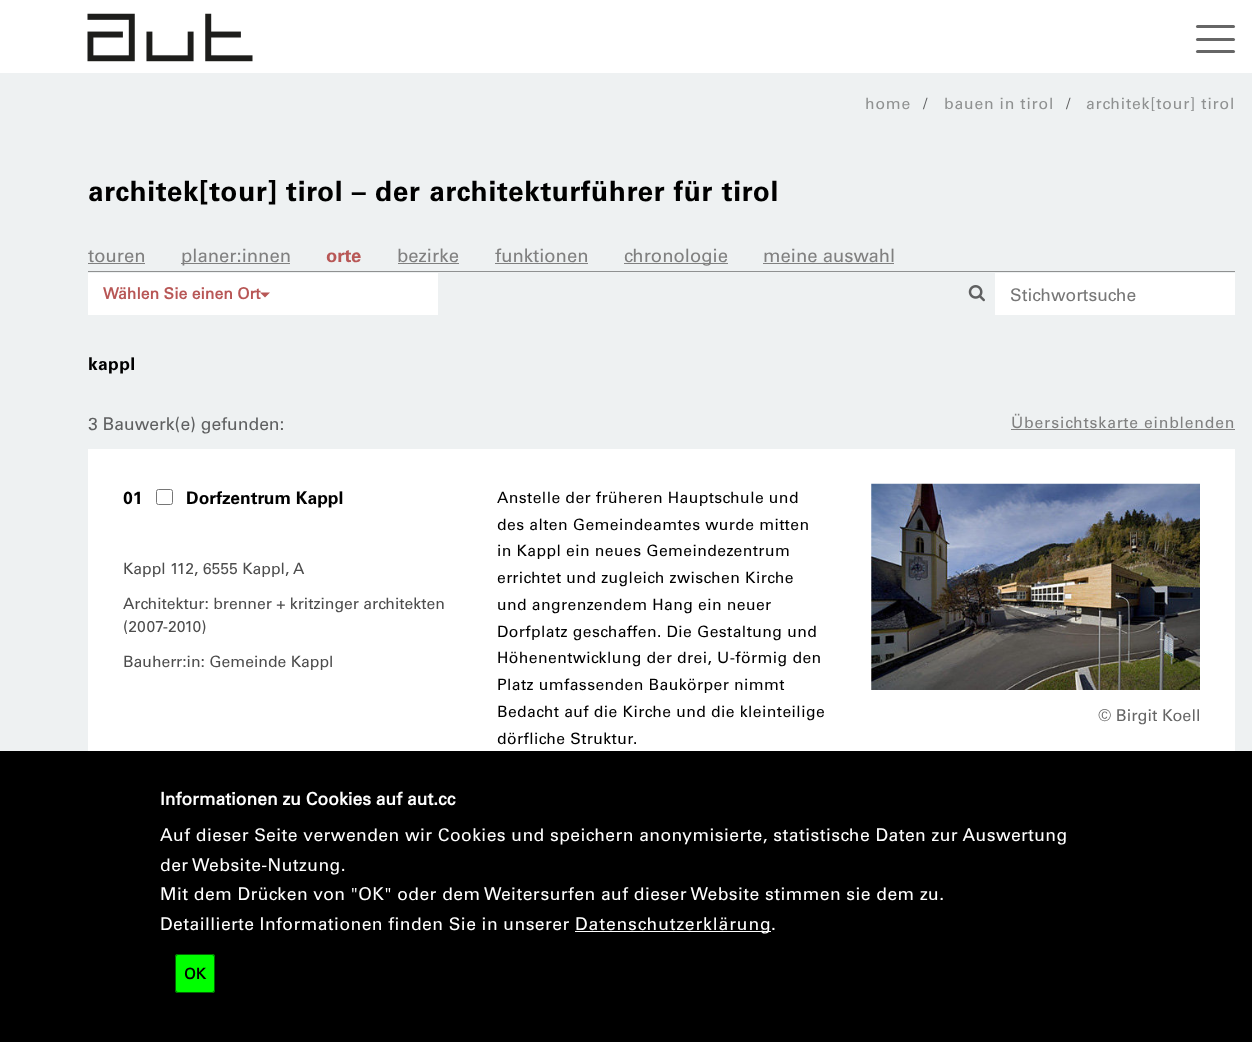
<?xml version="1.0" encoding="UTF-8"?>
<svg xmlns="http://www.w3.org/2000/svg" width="1252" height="1042">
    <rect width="100%" height="100%" fill="#EEF1F2"/>
    <rect x="0" y="0" width="1252" height="73" fill="#FFFFFF"/>
    <image x="87" y="13" width="166" height="49" href="img_01.png"/>
    <rect x="1196" y="38" width="39" height="3" rx="1.5" fill="#666666"/>
    <rect x="1196" y="25" width="39" height="3" rx="1.5" fill="#666666"/>
    <rect x="1196" y="50" width="39" height="3" rx="1.5" fill="#666666"/>
    <text x="865" y="109" font-family="Univers" font-size="15.75" letter-spacing="0.8" fill="#8F9191">home</text>
    <text x="923" y="109" font-family="Univers" font-size="15.75" letter-spacing="0.4" fill="#5F6061">/</text>
    <text x="944" y="109" font-family="Univers" font-size="15.75" letter-spacing="0.8" fill="#8F9191">bauen in tirol</text>
    <text x="1066" y="109" font-family="Univers" font-size="15.75" letter-spacing="0.4" fill="#5F6061">/</text>
    <text x="1086" y="109" font-family="Univers" font-size="15.75" letter-spacing="0.8" fill="#8F9191">architek[tour] tirol</text>
    <text x="88" y="201" font-family="Univers" font-size="28" font-weight="700" letter-spacing="0.7" fill="#000000">architek[tour] tirol – der architekturführer für tirol</text>
    <rect x="88" y="271" width="1147" height="1" fill="#8F9191"/>
    <text x="88" y="262" font-family="Univers" font-size="18.5" fill="#808080">touren</text>
    <rect x="88" y="263" width="57" height="1" fill="#808080"/>
    <rect x="181" y="263" width="109" height="1" fill="#808080"/>
    <text x="181" y="262" font-family="Univers" font-size="18.5" fill="#808080">planer:innen</text>
    <text x="326" y="262" font-family="Univers" font-size="18.5" font-weight="700" fill="#B85756">orte</text>
    <text x="397" y="262" font-family="Univers" font-size="18.5" fill="#808080">bezirke</text>
    <rect x="398" y="263" width="61" height="1" fill="#808080"/>
    <text x="495" y="262" font-family="Univers" font-size="18.5" fill="#808080">funktionen</text>
    <rect x="495" y="263" width="93" height="1" fill="#808080"/>
    <rect x="624" y="263" width="104" height="1" fill="#808080"/>
    <text x="624" y="262" font-family="Univers" font-size="18.5" fill="#808080">chronologie</text>
    <text x="763" y="262" font-family="Univers" font-size="18.5" fill="#808080">meine auswahl</text>
    <rect x="763" y="263" width="131" height="1" fill="#808080"/>
    <image x="968" y="285" width="17" height="17" href="img_02.png"/>
    <rect x="995" y="273" width="240" height="42" fill="#FFFFFF"/>
    <text x="1010" y="301" font-family="Univers" font-size="17.5" fill="#777777">Stichwortsuche</text>
    <rect x="88" y="273" width="350" height="42" fill="#FFFFFF"/>
    <text x="103" y="299" font-family="'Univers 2'" font-size="15.75" font-weight="700" fill="#B85756">Wählen Sie einen Ort</text>
    <path d="M 260 292.5 H 270 L 265 297.5 Z" fill="#B85756"/>
    <text x="88" y="370" font-family="Univers" font-size="17.5" font-weight="700" letter-spacing="0.44" fill="#000000">kappl</text>
    <text x="88" y="430" font-family="Univers" font-size="17.5" fill="#5F6061">3 Bauwerk(e) gefunden:</text>
    <text x="1011" y="428" font-family="Univers" font-size="15.75" letter-spacing="0.8" fill="#808080">Übersichtskarte einblenden</text>
    <rect x="1011" y="429" width="224" height="1" fill="#808080"/>
    <rect x="88" y="449" width="1147" height="302" fill="#FFFFFF"/>
    <text x="123" y="504" font-family="Univers" font-size="17.5" font-weight="700" letter-spacing="0.9" fill="#000000">01</text>
    <rect x="156.5" y="489.5" width="16" height="15" rx="2" fill="none" stroke="#767676"/>
    <text x="186" y="504" font-family="Univers" font-size="17.5" font-weight="700" fill="#000000">Dorfzentrum Kappl</text>
    <text x="123" y="574" font-family="Univers" font-size="15.75" fill="#4D4D4D">Kappl 112, 6555 Kappl, A</text>
    <text font-family="Univers" font-size="15.75" fill="#4D4D4D">
        <tspan x="123" y="609">Architektur: brenner + kritzinger architekten</tspan>
        <tspan x="123" y="632">(2007-2010)</tspan>
    </text>
    <text x="123" y="667" font-family="Univers" font-size="15.75" fill="#4D4D4D">Bauherr:in: Gemeinde Kappl</text>
    <text font-family="Univers" font-size="15.75" letter-spacing="0.4" fill="#000000">
        <tspan x="497" y="503">Anstelle der früheren Hauptschule und</tspan>
        <tspan x="497" y="530">des alten Gemeindeamtes wurde mitten</tspan>
        <tspan x="497" y="556">in Kappl ein neues Gemeindezentrum</tspan>
        <tspan x="497" y="583">errichtet und zugleich zwischen Kirche</tspan>
        <tspan x="497" y="610">und angrenzendem Hang ein neuer</tspan>
        <tspan x="497" y="637">Dorfplatz geschaffen. Die Gestaltung und</tspan>
        <tspan x="497" y="663">Höhenentwicklung der drei, U-förmig den</tspan>
        <tspan x="497" y="690">Platz umfassenden Baukörper nimmt</tspan>
        <tspan x="497" y="717">Bedacht auf die Kirche und die kleinteilige</tspan>
        <tspan x="497" y="744">dörfliche Struktur.</tspan>
    </text>
    <image x="871" y="483" width="329" height="207" href="img_03.png"/>
    <text x="1098" y="721" font-family="Univers" font-size="16.25" fill="#666666">© Birgit Koell</text>
    <rect x="0" y="751" width="1252" height="291" fill="#000000"/>
    <text x="160" y="805" font-family="'Univers 2'" font-size="17.5" font-weight="700" fill="#FFFFFF">Informationen zu Cookies auf aut.cc</text>
    <text font-family="Univers" font-size="17.5" letter-spacing="0.44" fill="#FFFFFF">
        <tspan x="160" y="841">Auf dieser Seite verwenden wir Cookies und speichern anonymisierte, statistische Daten zur Auswertung</tspan>
        <tspan x="160" y="871">der Website-Nutzung.</tspan>
        <tspan x="160" y="900">Mit dem Drücken von "OK" oder dem Weitersurfen auf dieser Website stimmen sie dem zu.</tspan>
        <tspan x="160" y="930">Detaillierte Informationen finden Sie in unserer</tspan>
    </text>
    <rect x="575" y="931" width="196" height="1" fill="#FFFFFF"/>
    <text x="575" y="930" font-family="Univers" font-size="17.5" letter-spacing="0.9" fill="#FFFFFF">Datenschutzerklärung</text>
    <text x="771" y="930" font-family="Univers" font-size="17.5" letter-spacing="0.44" fill="#FFFFFF">.</text>
    <rect x="175" y="954" width="40" height="39" rx="3" fill="#00FF00"/>
    <rect x="175.5" y="954.5" width="39" height="38" rx="2.5" fill="none" stroke="#000000" stroke-opacity="0.6"/>
    <text x="184" y="979" font-family="'Univers 2'" font-size="15" font-weight="700" fill="#000000">OK</text>
</svg>
